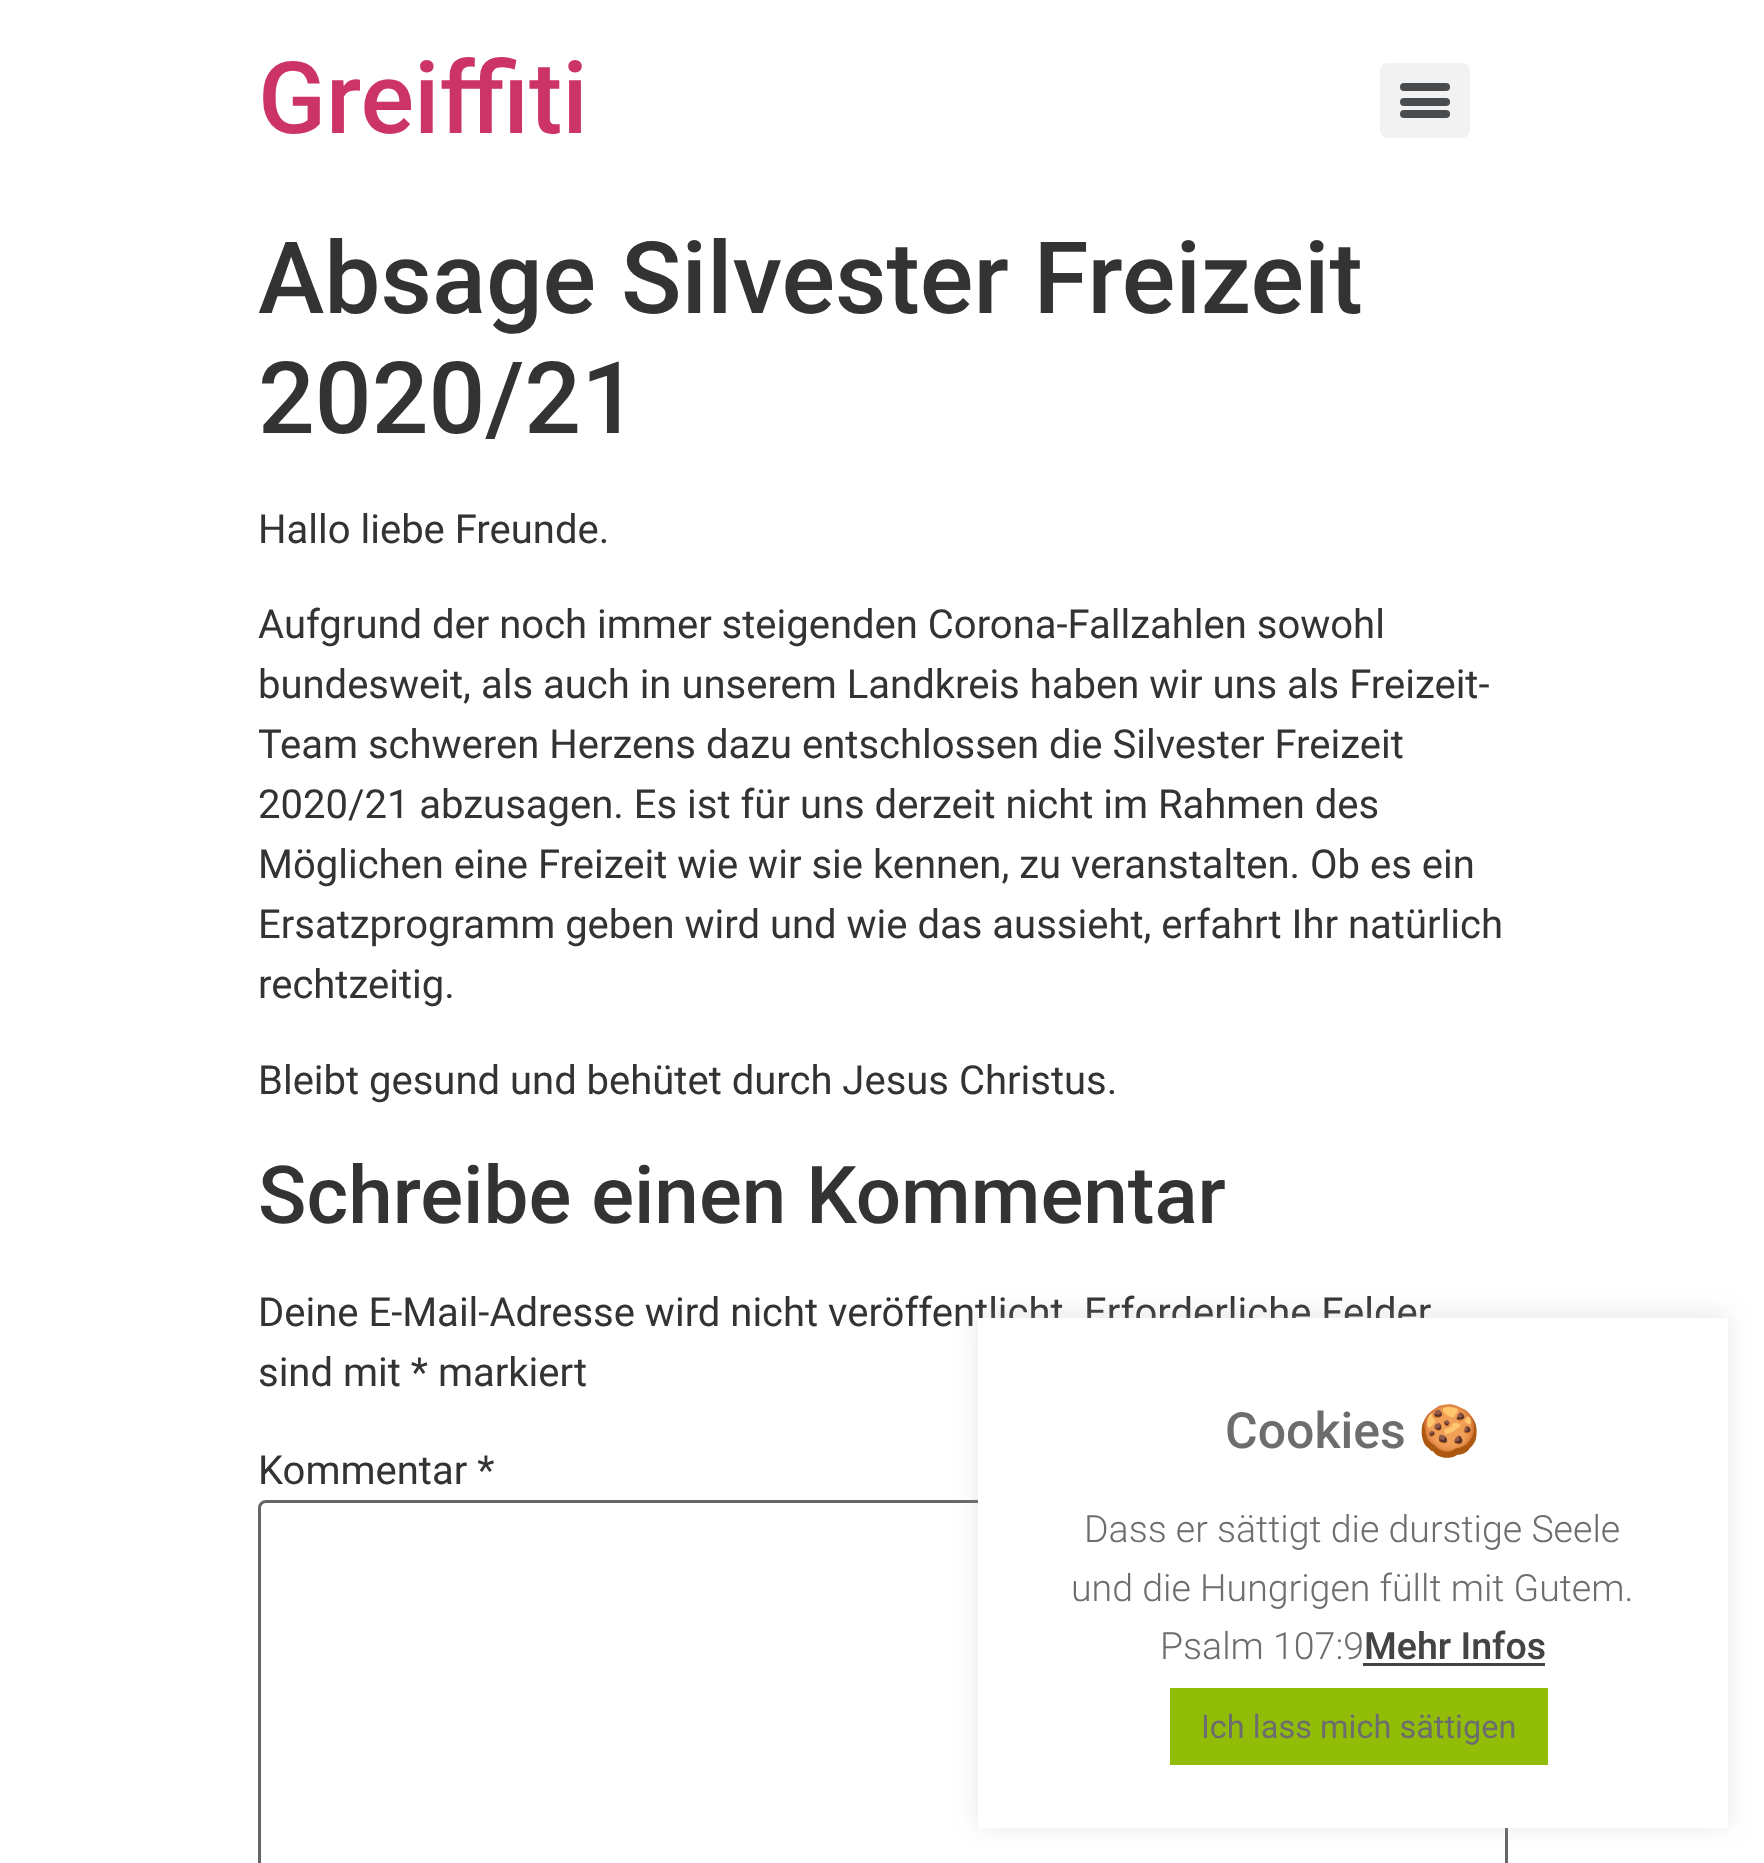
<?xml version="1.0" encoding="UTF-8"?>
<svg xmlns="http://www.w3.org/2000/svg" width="1764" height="1863">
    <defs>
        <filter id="blur1" x="-50%" y="-200%" width="200%" height="500%"><feGaussianBlur stdDeviation="12.5"/></filter>
    </defs>
    <rect width="100%" height="100%" fill="#FFFFFF"/>
    <text x="258" y="133" font-family="Roboto" font-size="100" font-weight="500" fill="#CC3366">Greiffiti</text>
    <rect x="1380" y="63" width="90" height="75" rx="8" fill="#F2F2F2"/>
    <rect x="1400" y="98" width="50" height="8" rx="4" fill="#494C4F"/>
    <rect x="1400" y="83" width="50" height="8" rx="4" fill="#494C4F"/>
    <rect x="1400" y="110" width="50" height="8" rx="4" fill="#494C4F"/>
    <text font-family="Roboto" font-size="100" font-weight="500" fill="#333333">
        <tspan x="258" y="313">Absage Silvester Freizeit</tspan>
        <tspan x="258" y="433">2020/21</tspan>
    </text>
    <text x="258" y="543" font-family="Roboto" font-size="40" fill="#333333">Hallo liebe Freunde.</text>
    <text font-family="Roboto" font-size="40" fill="#333333">
        <tspan x="258" y="638">Aufgrund der noch immer steigenden Corona-Fallzahlen sowohl</tspan>
        <tspan x="258" y="698">bundesweit, als auch in unserem Landkreis haben wir uns als Freizeit-</tspan>
        <tspan x="258" y="758">Team schweren Herzens dazu entschlossen die Silvester Freizeit</tspan>
        <tspan x="258" y="818">2020/21 abzusagen. Es ist für uns derzeit nicht im Rahmen des</tspan>
        <tspan x="258" y="878">Möglichen eine Freizeit wie wir sie kennen, zu veranstalten. Ob es ein</tspan>
        <tspan x="258" y="938">Ersatzprogramm geben wird und wie das aussieht, erfahrt Ihr natürlich</tspan>
        <tspan x="258" y="998">rechtzeitig.</tspan>
    </text>
    <text x="258" y="1094" font-family="Roboto" font-size="40" fill="#333333">Bleibt gesund und behütet durch Jesus Christus.</text>
    <text x="258" y="1223" font-family="Roboto" font-size="80" font-weight="500" fill="#333333">Schreibe einen Kommentar</text>
    <text x="258" y="1326" font-family="Roboto" font-size="40" fill="#333333">Deine E-Mail-Adresse wird nicht veröffentlicht</text>
    <text x="1084" y="1326" font-family="Roboto" font-size="40" fill="#333333">Erforderliche Felder</text>
    <text x="258" y="1386" font-family="Roboto" font-size="40" fill="#333333">sind mit * markiert</text>
    <text x="258" y="1484" font-family="Roboto" font-size="40" fill="#333333">Kommentar *</text>
    <rect x="259.5" y="1501.5" width="1247" height="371" rx="6.5" fill="none" stroke="#666666" stroke-width="3"/>
    <rect x="978" y="1315" width="750" height="510" fill="#ACABAB" fill-opacity="0.3" filter="url(#blur1)"/>
    <rect x="978" y="1318" width="750" height="510" fill="#FFFFFF"/>
    <text x="1225" y="1448" font-family="Roboto" font-size="50" font-weight="500" fill="#6D6D6D">Cookies</text>
    <text x="1418" y="1448" font-family="Noto Color Emoji" font-size="50" fill="#6D6D6D">🍪</text>
    <text x="1084" y="1542" font-family="Roboto" font-size="37.5" font-weight="300" fill="#6D6D6D">Dass er sättigt die durstige Seele</text>
    <text x="1071" y="1601" font-family="Roboto" font-size="37.5" font-weight="300" fill="#6D6D6D">und die Hungrigen füllt mit Gutem.</text>
    <text x="1160" y="1659" font-family="Roboto" font-size="37.5" font-weight="300" fill="#6D6D6D">Psalm 107:9</text>
    <text x="1364" y="1659" font-family="'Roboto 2'" font-size="37.5" font-weight="500" fill="#444444">Mehr Infos</text>
    <rect x="1363" y="1663" width="182" height="3" fill="#444444"/>
    <rect x="1170" y="1688" width="378" height="77" fill="#91BD09"/>
    <text x="1201" y="1738" font-family="Roboto" font-size="32.5" fill="#6D6D6D">Ich lass mich sättigen</text>
</svg>
